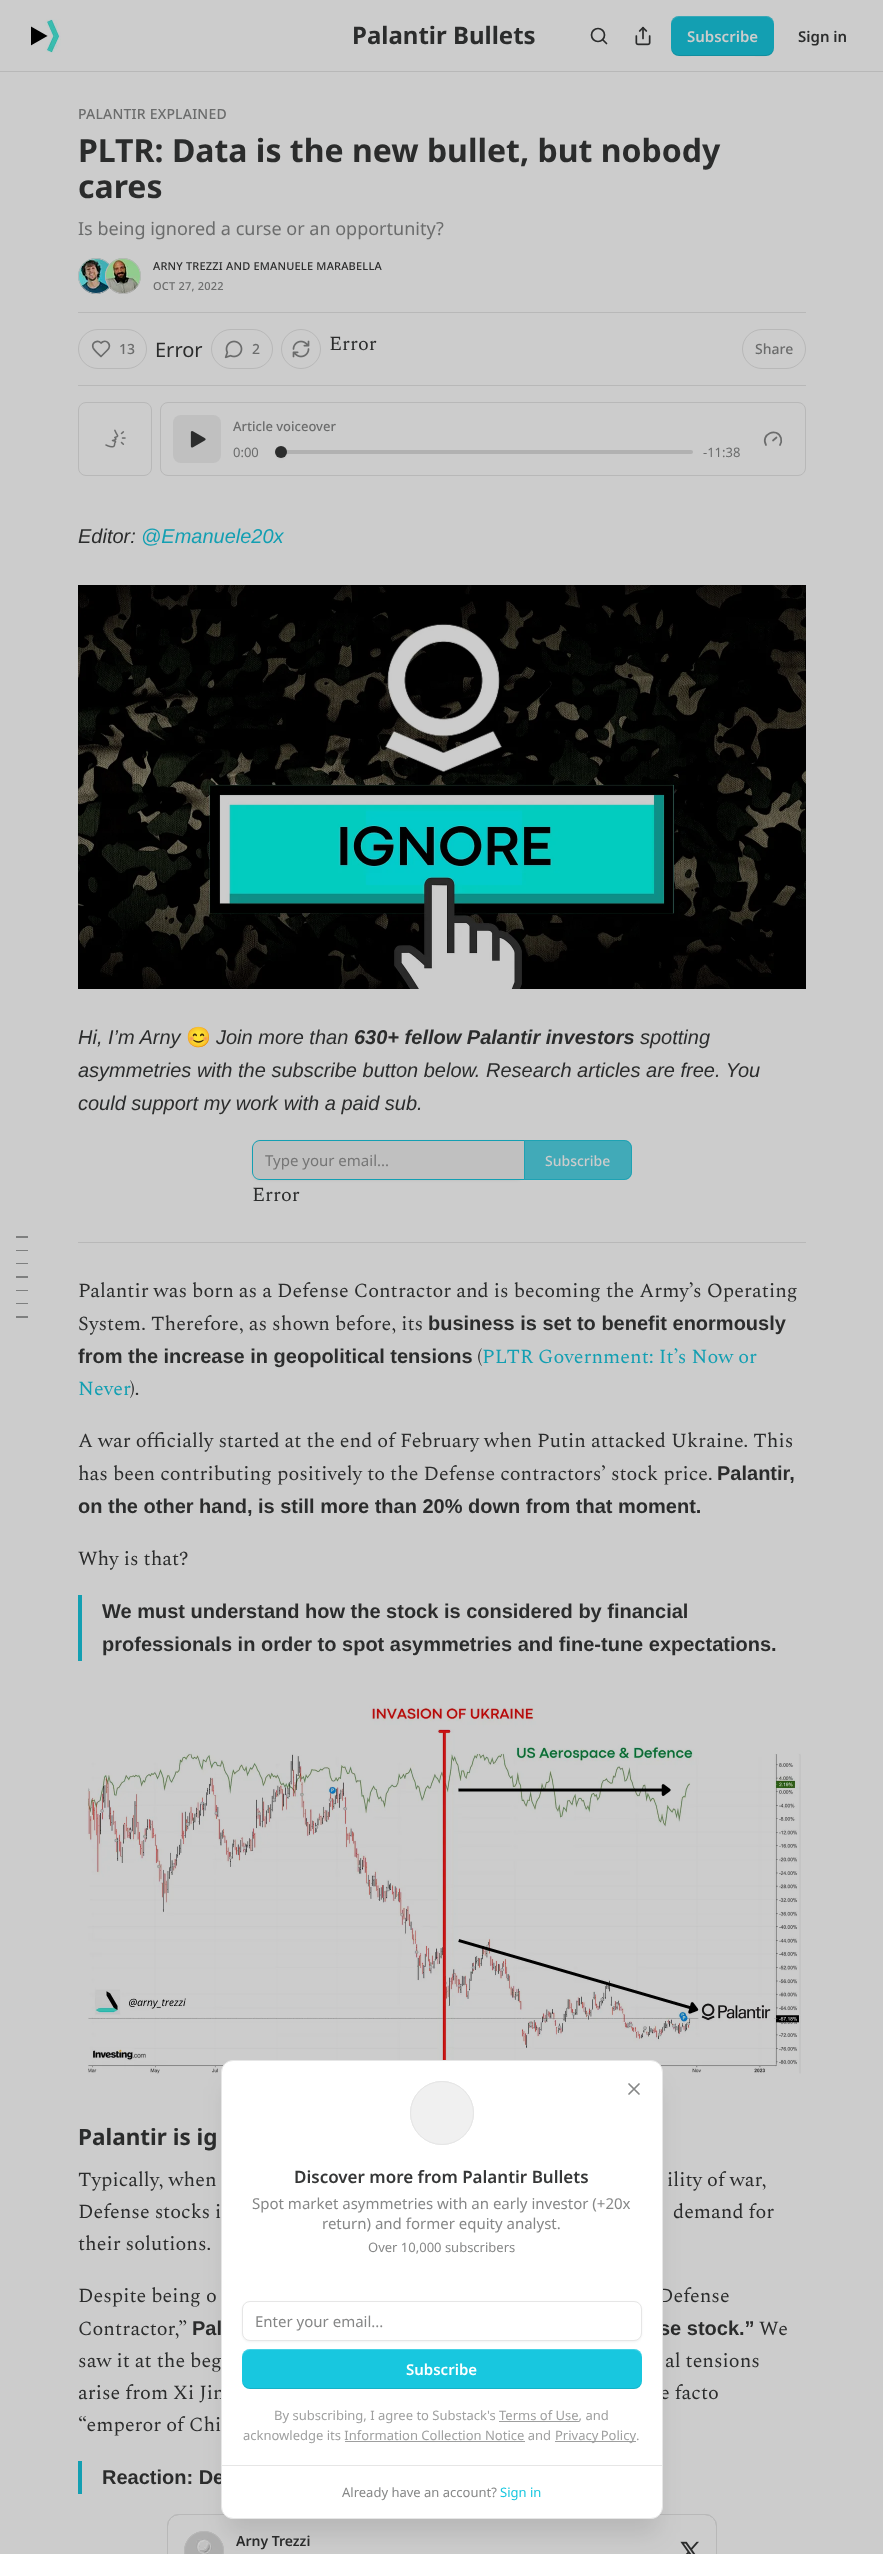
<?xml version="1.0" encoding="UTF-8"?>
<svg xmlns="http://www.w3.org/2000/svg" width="883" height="2554">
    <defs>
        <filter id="blur1" x="-50%" y="-200%" width="200%" height="500%"><feGaussianBlur stdDeviation="1"/></filter>
        <filter id="blur2" x="-50%" y="-200%" width="200%" height="500%"><feGaussianBlur stdDeviation="12.5"/></filter>
    </defs>
    <rect width="100%" height="100%" fill="#CCCCCC"/>
    <rect x="0" y="71" width="883" height="1" fill="#B8B8B8"/>
    <image x="31" y="19" width="30" height="34" href="img_01.png"/>
    <text x="352" y="44" font-family="Noto Sans" font-size="24" font-weight="700" fill="#2B2C2C">Palantir Bullets</text>
    <circle cx="598" cy="35" r="6.5" fill="none" stroke="#2B2C2C" stroke-width="1.7"/>
    <path d="M 606.5 43.5 L 603 40" fill="none" stroke="#2B2C2C" stroke-width="1.7" stroke-linecap="round" stroke-linejoin="round"/>
    <image x="635" y="26" width="16" height="20" href="img_02.png"/>
    <rect x="671" y="16" width="103" height="40" rx="8" fill="#139FB2"/>
    <path d="M 671 47 C 671 59 685 56 694 56 H 752 C 760 56 774 59 774 47 C 774 51 770 55 766 55 H 679 C 675 55 671 51 671 47 Z" fill="#000000" fill-opacity="0.1"/>
    <path d="M 679 17 H 766 C 770 17 774 21 774 25 C 774 13 760 16 752 16 H 694 C 685 16 671 13 671 25 C 671 21 675 17 679 17 Z" fill="#CCCCCC" fill-opacity="0.2"/>
    <text x="687" y="42" font-family="Noto Sans" font-size="15" font-weight="600" fill="#CCCCCC">Subscribe</text>
    <text x="798" y="42" font-family="Noto Sans" font-size="15" font-weight="600" fill="#2B2C2C">Sign in</text>
    <text x="78" y="119" font-family="Noto Sans" font-size="14" font-weight="500" letter-spacing="0.2" fill="#6B6C6C">PALANTIR EXPLAINED</text>
    <text font-family="Noto Sans" font-size="32" font-weight="700" fill="#2B2C2C">
        <tspan x="78" y="162">PLTR: Data is the new bullet, but nobody</tspan>
        <tspan x="78" y="198">cares</tspan>
    </text>
    <text x="78" y="235" font-family="Noto Sans" font-size="18" fill="#6B6C6C">Is being ignored a curse or an opportunity?</text>
    <circle cx="96" cy="276" r="17.5" fill="none" stroke="#B8B8B8"/>
    <image x="78" y="258" width="32" height="36" href="img_03.png"/>
    <circle cx="96" cy="276" r="17.5" fill="none" stroke="#B8B8B8"/>
    <circle cx="123" cy="276" r="17.5" fill="none" stroke="#B8B8B8"/>
    <image x="105" y="258" width="36" height="36" href="img_04.png"/>
    <circle cx="123" cy="276" r="17.5" fill="none" stroke="#B8B8B8"/>
    <text x="153" y="270" font-family="Noto Sans" font-size="11" font-weight="500" letter-spacing="0.2" fill="#2B2C2C">ARNY TREZZI AND EMANUELE MARABELLA</text>
    <text x="153" y="290" font-family="Noto Sans" font-size="11" font-weight="500" letter-spacing="0.2" fill="#6B6C6C">OCT 27, 2022</text>
    <rect x="78" y="312" width="728" height="1" fill="#B8B8B8"/>
    <rect x="78" y="385" width="728" height="1" fill="#B8B8B8"/>
    <rect x="78.5" y="329.5" width="68" height="39" rx="19.5" fill="none" stroke="#B8B8B8"/>
    <path d="M 107 350.5 C 113 344.5 106 338.5 101 343 C 97.5 339.5 91.5 342.5 93 347.5 C 94 350.5 99 354.5 101 356.5 Z" fill="none" stroke="#6B6C6C" stroke-width="1.7" stroke-linecap="round" stroke-linejoin="round"/>
    <text x="119" y="354" font-family="Noto Sans" font-size="14" font-weight="500" fill="#6B6C6C">13</text>
    <text x="155" y="357" font-family="Noto Sans" font-size="20" fill="#2B2C2C">Error</text>
    <rect x="211.5" y="329.5" width="61" height="39" rx="19.5" fill="none" stroke="#B8B8B8"/>
    <image x="224" y="340" width="19" height="19" href="img_05.png"/>
    <text x="252" y="354" font-family="Noto Sans" font-size="14" font-weight="500" fill="#6B6C6C">2</text>
    <circle cx="301" cy="349" r="19.5" fill="none" stroke="#B8B8B8"/>
    <image x="292" y="340" width="18" height="18" href="img_06.png"/>
    <text x="329" y="350" font-family="Spectral" font-size="20" fill="#2B2C2C">Error</text>
    <rect x="742.5" y="329.5" width="63" height="39" rx="19.5" fill="none" stroke="#B8B8B8"/>
    <text x="755" y="354" font-family="Noto Sans" font-size="14" font-weight="500" fill="#6B6C6C">Share</text>
    <rect x="78.5" y="402.5" width="73" height="73" rx="7.5" fill="none" stroke="#B8B8B8"/>
    <image x="105" y="429" width="21" height="19" href="img_07.png"/>
    <rect x="160.5" y="402.5" width="645" height="73" rx="7.5" fill="none" stroke="#B8B8B8"/>
    <rect x="173" y="415" width="48" height="48" rx="8" fill="#C0C0C0"/>
    <image x="190" y="431" width="16" height="17" href="img_08.png"/>
    <text x="233" y="431" font-family="Noto Sans" font-size="13" font-weight="500" fill="#6B6C6C">Article voiceover</text>
    <text x="233" y="457" font-family="Noto Sans" font-size="13" fill="#6B6C6C">0:00</text>
    <rect x="281" y="450" width="412" height="4" rx="2" fill="#B1B1B1"/>
    <rect x="275" y="447" width="12" height="12" rx="6" fill="#000000" fill-opacity="0.05" filter="url(#blur1)"/>
    <circle cx="281" cy="452" r="6" fill="#2B2C2C"/>
    <text x="703" y="457" font-family="Noto Sans" font-size="13" fill="#6B6C6C">-11:38</text>
    <path d="M 773 440.5 L 776.5 437.5 M 766 445 C 760 434.5 777 426.5 781 438 C 781.5 440 781.5 442.5 780 445" fill="none" stroke="#6B6C6C" stroke-width="1.7" stroke-linecap="round" stroke-linejoin="round"/>
    <rect x="16" y="1236" width="12" height="2" fill="#7E7F7F"/>
    <rect x="16" y="1250" width="12" height="1" fill="#7E7F7F"/>
    <rect x="16" y="1263" width="12" height="1" fill="#7E7F7F"/>
    <rect x="16" y="1276" width="12" height="2" fill="#7E7F7F"/>
    <rect x="16" y="1290" width="12" height="1" fill="#7E7F7F"/>
    <rect x="16" y="1303" width="12" height="1" fill="#7E7F7F"/>
    <rect x="16" y="1316" width="12" height="2" fill="#7E7F7F"/>
    <text x="78" y="543" font-family="Liberation Sans" font-size="20" font-style="italic" fill="#2B2C2C">Editor:</text>
    <text x="141" y="543" font-family="Liberation Sans" font-size="20" font-style="italic" fill="#139FB2">@Emanuele20x</text>
    <image x="78" y="585" width="728" height="404" href="img_09.png"/>
    <text x="78" y="1044" font-family="Liberation Sans" font-size="20" font-style="italic" fill="#2B2C2C">Hi, I’m Arny</text>
    <text x="186" y="1044" font-family="Noto Color Emoji" font-size="20" fill="#2B2C2C">😊</text>
    <text x="216" y="1044" font-family="Liberation Sans" font-size="20" font-style="italic" fill="#2B2C2C">Join more than</text>
    <text x="354" y="1044" font-family="Liberation Sans" font-size="20" font-weight="700" font-style="italic" fill="#2B2C2C">630+ fellow Palantir investors</text>
    <text x="640" y="1044" font-family="Liberation Sans" font-size="20" font-style="italic" fill="#2B2C2C">spotting</text>
    <text font-family="Liberation Sans" font-size="20" font-style="italic" fill="#2B2C2C">
        <tspan x="78" y="1077">asymmetries with the subscribe button below. Research articles are free. You</tspan>
        <tspan x="78" y="1110">could support my work with a paid sub.</tspan>
    </text>
    <rect x="252" y="1141" width="272" height="40" rx="8" fill="#000000" fill-opacity="0.05" filter="url(#blur1)"/>
    <path d="M 260 1141 H 524 V 1179 H 260 C 256 1179 253 1176 253 1172 V 1148 C 253 1144 256 1141 260 1141 Z" fill="#C0C0C0"/>
    <path d="M 260 1140 H 524 V 1180 H 260 C 256 1180 252 1176 252 1172 V 1148 C 252 1144 256 1140 260 1140 Z M 260 1141 H 524 V 1179 H 260 C 256 1179 253 1176 253 1172 V 1148 C 253 1144 256 1141 260 1141 Z" fill="#139FB2" fill-rule="evenodd"/>
    <text x="265" y="1166" font-family="Noto Sans" font-size="15" fill="#757575">Type your email...</text>
    <path d="M 524 1140 H 624 C 628.5 1140 632 1143.5 632 1148 V 1172 C 632 1176.5 628.5 1180 624 1180 H 524 Z" fill="#139FB2" fill-opacity="0.75"/>
    <path d="M 524.5 1140.5 H 624 C 628 1140.5 631.5 1144 631.5 1148 V 1172 C 631.5 1176 628 1179.5 624 1179.5 H 524.5 Z" fill="none" stroke="#139FB2" stroke-opacity="0.75"/>
    <text x="545" y="1166" font-family="Noto Sans" font-size="14" font-weight="500" fill="#CCCCCC">Subscribe</text>
    <text x="252" y="1201" font-family="Spectral" font-size="20" fill="#2B2C2C">Error</text>
    <rect x="78" y="1242" width="728" height="1" fill="#B8B8B8"/>
    <text font-family="Spectral" font-size="20" fill="#2B2C2C">
        <tspan x="78" y="1297">Palantir was born as a Defense Contractor and is becoming the Army’s Operating</tspan>
        <tspan x="78" y="1330">System. Therefore, as shown before, its</tspan>
    </text>
    <text x="428" y="1330" font-family="Liberation Sans" font-size="20" font-weight="700" fill="#2B2C2C">business is set to benefit enormously</text>
    <text x="78" y="1363" font-family="Liberation Sans" font-size="20" font-weight="700" fill="#2B2C2C">from the increase in geopolitical tensions</text>
    <text x="477" y="1363" font-family="Spectral" font-size="20" fill="#2B2C2C">(</text>
    <text x="482" y="1363" font-family="Spectral" font-size="20" fill="#139FB2">PLTR Government: It’s Now or</text>
    <text x="78" y="1395" font-family="Spectral" font-size="20" fill="#139FB2">Never</text>
    <text x="130" y="1395" font-family="Spectral" font-size="20" fill="#2B2C2C">).</text>
    <text font-family="Spectral" font-size="20" fill="#2B2C2C">
        <tspan x="78" y="1447">A war officially started at the end of February when Putin attacked Ukraine. This</tspan>
        <tspan x="78" y="1480">has been contributing positively to the Defense contractors’ stock price.</tspan>
    </text>
    <text x="717" y="1480" font-family="Liberation Sans" font-size="20" font-weight="700" fill="#2B2C2C">Palantir,</text>
    <text x="78" y="1513" font-family="Liberation Sans" font-size="20" font-weight="700" fill="#2B2C2C">on the other hand, is still more than 20% down from that moment.</text>
    <text x="78" y="1565" font-family="Spectral" font-size="20" fill="#2B2C2C">Why is that?</text>
    <rect x="78" y="1595" width="4" height="66" fill="#139FB2"/>
    <text font-family="Liberation Sans" font-size="20" font-weight="700" fill="#2B2C2C">
        <tspan x="102" y="1618">We must understand how the stock is considered by financial</tspan>
        <tspan x="102" y="1651">professionals in order to spot asymmetries and fine-tune expectations.</tspan>
    </text>
    <image x="87" y="1705" width="714" height="369" href="img_10.png"/>
    <text x="78" y="2145" font-family="Noto Sans" font-size="22.5" font-weight="700" fill="#2B2C2C">Palantir is ig</text>
    <text x="78" y="2186" font-family="Spectral" font-size="20" fill="#2B2C2C">Typically, when</text>
    <text x="667" y="2186" font-family="Spectral" font-size="20" fill="#2B2C2C">ility of war,</text>
    <text x="78" y="2218" font-family="Spectral" font-size="20" fill="#2B2C2C">Defense stocks i</text>
    <text x="673" y="2218" font-family="Spectral" font-size="20" fill="#2B2C2C">demand for</text>
    <text x="78" y="2250" font-family="Spectral" font-size="20" fill="#2B2C2C">their solutions.</text>
    <text x="78" y="2302" font-family="Spectral" font-size="20" fill="#2B2C2C">Despite being o</text>
    <text x="658" y="2302" font-family="Spectral" font-size="20" fill="#2B2C2C">Defense</text>
    <text x="78" y="2335" font-family="Spectral" font-size="20" fill="#2B2C2C">Contractor,”</text>
    <text x="192" y="2335" font-family="Liberation Sans" font-size="20" font-weight="700" fill="#2B2C2C">Pal</text>
    <text x="659" y="2335" font-family="Liberation Sans" font-size="20" font-weight="700" fill="#2B2C2C">se stock.”</text>
    <text x="759" y="2335" font-family="Spectral" font-size="20" fill="#2B2C2C">We</text>
    <text x="78" y="2367" font-family="Spectral" font-size="20" fill="#2B2C2C">saw it at the beg</text>
    <text x="665" y="2367" font-family="Spectral" font-size="20" fill="#2B2C2C">al tensions</text>
    <text x="78" y="2399" font-family="Spectral" font-size="20" fill="#2B2C2C">arise from Xi Jin</text>
    <text x="660" y="2399" font-family="Spectral" font-size="20" fill="#2B2C2C">e facto</text>
    <text x="78" y="2431" font-family="Spectral" font-size="20" fill="#2B2C2C">“emperor of Chi</text>
    <rect x="78" y="2461" width="4" height="33" fill="#139FB2"/>
    <text x="102" y="2484" font-family="Liberation Sans" font-size="20" font-weight="700" fill="#2B2C2C">Reaction: De</text>
    <rect x="167.5" y="2514.5" width="549" height="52" rx="11.5" fill="none" stroke="#B8B8B8"/>
    <rect x="167.5" y="2514.5" width="549" height="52" rx="11.5" fill="none" stroke="#B8B8B8"/>
    <circle cx="204" cy="2551" r="19.5" fill="none" stroke="#B8B8B8"/>
    <image x="184" y="2531" width="40" height="23" href="img_11.png"/>
    <circle cx="204" cy="2551" r="19.5" fill="none" stroke="#B8B8B8"/>
    <text x="236" y="2546" font-family="Noto Sans" font-size="14" font-weight="600" fill="#2B2C2C">Arny Trezzi</text>
    <image x="680" y="2541" width="19" height="13" href="img_12.png"/>
    <rect x="226" y="2085" width="432" height="449" rx="7" fill="#000000" fill-opacity="0.1" filter="url(#blur2)"/>
    <rect x="221.5" y="2060.5" width="441" height="458" rx="11.5" fill="#FFFFFF" stroke="#E6E6E6"/>
    <circle cx="442" cy="2113" r="31.5" fill="none" stroke="#E6E6E6"/>
    <circle cx="442" cy="2113" r="31.5" fill="#F0F0F0" stroke="#E6E6E6"/>
    <path d="M 639 2084 L 629 2094 M 629 2084 L 639 2094" fill="none" stroke="#868787" stroke-width="1.7" stroke-linecap="round" stroke-linejoin="round"/>
    <text x="294" y="2183" font-family="Noto Sans" font-size="17" font-weight="600" fill="#363737">Discover more from Palantir Bullets</text>
    <text x="252" y="2209" font-family="Noto Sans" font-size="15" fill="#868787">Spot market asymmetries with an early investor (+20x</text>
    <text x="322" y="2229" font-family="Noto Sans" font-size="15" fill="#868787">return) and former equity analyst.</text>
    <text x="368" y="2252" font-family="Noto Sans" font-size="13" fill="#868787">Over 10,000 subscribers</text>
    <rect x="242" y="2302" width="400" height="40" rx="8" fill="#000000" fill-opacity="0.05" filter="url(#blur1)"/>
    <rect x="242.5" y="2301.5" width="399" height="39" rx="7.5" fill="#FFFFFF" stroke="#E6E6E6"/>
    <text x="255" y="2327" font-family="Noto Sans" font-size="15" fill="#868787">Enter your email...</text>
    <rect x="242" y="2349" width="400" height="40" rx="8" fill="#18C7DF"/>
    <path d="M 242 2380 V 2381 C 242 2385 246 2389 250 2389 H 634 C 638 2389 642 2385 642 2381 V 2380 C 642 2384 638 2388 634 2388 H 250 C 246 2388 242 2384 242 2380 Z" fill="#000000" fill-opacity="0.1"/>
    <path d="M 250 2350 H 634 C 638 2350 642 2354 642 2358 V 2357 C 642 2353 638 2349 634 2349 H 250 C 246 2349 242 2353 242 2357 V 2358 C 242 2354 246 2350 250 2350 Z" fill="#FFFFFF" fill-opacity="0.2"/>
    <text x="406" y="2375" font-family="Noto Sans" font-size="15" font-weight="600" fill="#FFFFFF">Subscribe</text>
    <text x="274" y="2420" font-family="Noto Sans" font-size="13" fill="#9E9F9F">By subscribing, I agree to Substack's Terms of Use, and</text>
    <rect x="499" y="2421" width="80" height="1" fill="#9E9F9F"/>
    <text x="243" y="2440" font-family="Noto Sans" font-size="13" fill="#9E9F9F">acknowledge its Information Collection Notice and</text>
    <rect x="555" y="2441" width="81" height="1" fill="#9E9F9F"/>
    <text x="555" y="2440" word-spacing="-1" font-family="Noto Sans" font-size="13" fill="#9E9F9F">Privacy Policy</text>
    <text x="636" y="2440" font-family="Noto Sans" font-size="13" fill="#9E9F9F">.</text>
    <rect x="345" y="2441" width="180" height="1" fill="#9E9F9F"/>
    <rect x="222" y="2465" width="440" height="1" fill="#E6E6E6"/>
    <text x="342" y="2497" font-family="Noto Sans" font-size="13" fill="#868787">Already have an account?</text>
    <text x="500" y="2497" font-family="Noto Sans" font-size="13" fill="#18C7DF">Sign in</text>
</svg>
